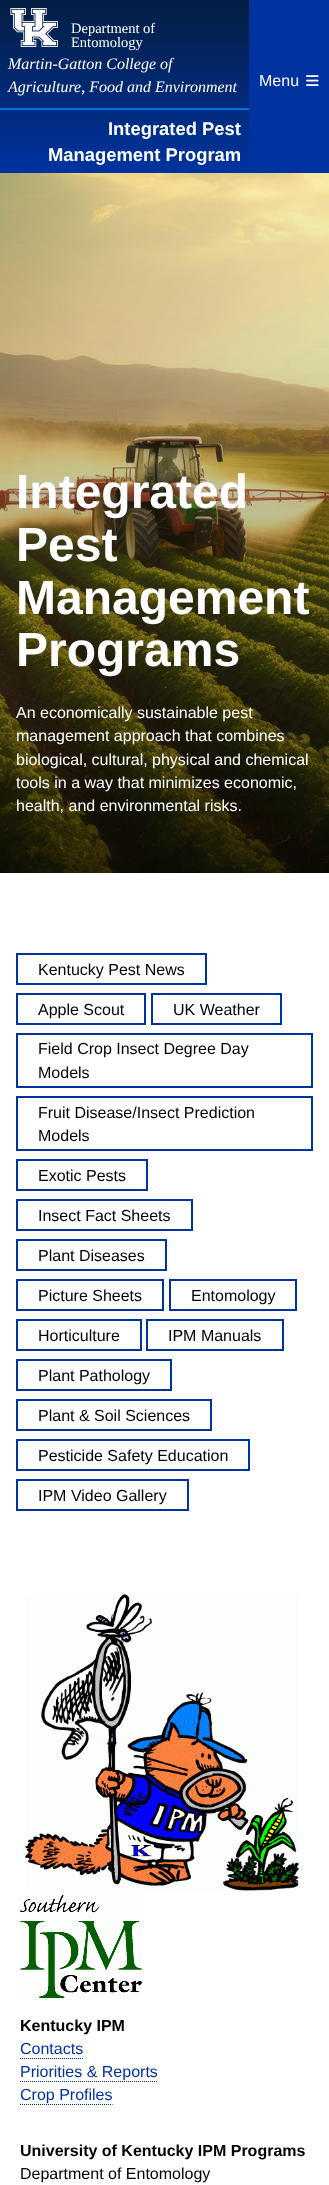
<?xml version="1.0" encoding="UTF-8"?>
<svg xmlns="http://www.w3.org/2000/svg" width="329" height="2185">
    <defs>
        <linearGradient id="g1" gradientUnits="userSpaceOnUse" x1="165" y1="0" x2="165" y2="173"><stop offset="0" stop-color="#041E42"/><stop offset="1" stop-color="#0033A0"/></linearGradient>
    </defs>
    <rect width="100%" height="100%" fill="#FFFFFF"/>
    <rect x="0" y="0" width="249" height="173" fill="url(#g1)"/>
    <image x="10" y="8" width="48" height="39" href="img_01.png"/>
    <text font-family="Liberation Serif" font-size="14.5" fill="#FFFFFF">
        <tspan x="71" y="33">Department of</tspan>
        <tspan x="71" y="47">Entomology</tspan>
    </text>
    <text font-family="Liberation Serif" font-size="16" font-style="italic" fill="#FFFFFF">
        <tspan x="8" y="69">Martin-Gatton College of</tspan>
        <tspan x="8" y="92">Agriculture, Food and Environment</tspan>
    </text>
    <rect x="249" y="0" width="80" height="173" fill="#0033A0"/>
    <text x="259" y="86" font-family="Liberation Sans" font-size="16" fill="#FFFFFF">Menu</text>
    <image x="306" y="75" width="13" height="11" href="img_02.png"/>
    <rect x="0" y="108" width="249" height="2" fill="#0071EB"/>
    <text x="108" y="135" font-family="Liberation Sans" font-size="18.4" font-weight="700" fill="#FFFFFF">Integrated Pest</text>
    <text x="48" y="161" font-family="Liberation Sans" font-size="18.4" font-weight="700" fill="#FFFFFF">Management Program</text>
    <image x="0" y="173" width="329" height="700" href="img_03.png"/>
    <text font-family="Liberation Sans" font-size="48" font-weight="700" fill="#FFFFFF">
        <tspan x="16" y="508">Integrated</tspan>
        <tspan x="16" y="561">Pest</tspan>
        <tspan x="16" y="614">Management</tspan>
        <tspan x="16" y="666">Programs</tspan>
    </text>
    <text font-family="Liberation Sans" font-size="16" fill="#FFFFFF">
        <tspan x="16" y="718">An economically sustainable pest</tspan>
        <tspan x="16" y="741">management approach that combines</tspan>
        <tspan x="16" y="765">biological, cultural, physical and chemical</tspan>
        <tspan x="16" y="788">tools in a way that minimizes economic,</tspan>
        <tspan x="16" y="811">health, and environmental risks.</tspan>
    </text>
    <rect x="17" y="954" width="189" height="30" fill="none" stroke="#0033A0" stroke-width="2"/>
    <text x="38" y="975" font-family="Liberation Sans" font-size="16" fill="#000000">Kentucky Pest News</text>
    <rect x="17" y="994" width="128" height="30" fill="none" stroke="#0033A0" stroke-width="2"/>
    <text x="38" y="1015" font-family="Liberation Sans" font-size="16" fill="#000000">Apple Scout</text>
    <rect x="152" y="994" width="129" height="30" fill="none" stroke="#0033A0" stroke-width="2"/>
    <text x="173" y="1015" font-family="Liberation Sans" font-size="16" fill="#000000">UK Weather</text>
    <rect x="17" y="1034" width="295" height="53" fill="none" stroke="#0033A0" stroke-width="2"/>
    <text font-family="Liberation Sans" font-size="16" fill="#000000">
        <tspan x="38" y="1054">Field Crop Insect Degree Day</tspan>
        <tspan x="38" y="1078">Models</tspan>
    </text>
    <rect x="17" y="1097" width="295" height="53" fill="none" stroke="#0033A0" stroke-width="2"/>
    <text font-family="Liberation Sans" font-size="16" fill="#000000">
        <tspan x="38" y="1118">Fruit Disease/Insect Prediction</tspan>
        <tspan x="38" y="1141">Models</tspan>
    </text>
    <rect x="17" y="1160" width="130" height="30" fill="none" stroke="#0033A0" stroke-width="2"/>
    <text x="38" y="1181" font-family="Liberation Sans" font-size="16" fill="#000000">Exotic Pests</text>
    <rect x="17" y="1200" width="175" height="30" fill="none" stroke="#0033A0" stroke-width="2"/>
    <text x="38" y="1221" font-family="Liberation Sans" font-size="16" fill="#000000">Insect Fact Sheets</text>
    <rect x="17" y="1240" width="149" height="30" fill="none" stroke="#0033A0" stroke-width="2"/>
    <text x="38" y="1261" font-family="Liberation Sans" font-size="16" fill="#000000">Plant Diseases</text>
    <rect x="17" y="1280" width="146" height="30" fill="none" stroke="#0033A0" stroke-width="2"/>
    <text x="38" y="1301" font-family="Liberation Sans" font-size="16" fill="#000000">Picture Sheets</text>
    <rect x="170" y="1280" width="126" height="30" fill="none" stroke="#0033A0" stroke-width="2"/>
    <text x="191" y="1301" font-family="Liberation Sans" font-size="16" fill="#000000">Entomology</text>
    <rect x="17" y="1320" width="124" height="30" fill="none" stroke="#0033A0" stroke-width="2"/>
    <text x="38" y="1341" font-family="Liberation Sans" font-size="16" fill="#000000">Horticulture</text>
    <rect x="147" y="1320" width="136" height="30" fill="none" stroke="#0033A0" stroke-width="2"/>
    <text x="168" y="1341" font-family="Liberation Sans" font-size="16" fill="#000000">IPM Manuals</text>
    <rect x="17" y="1360" width="154" height="30" fill="none" stroke="#0033A0" stroke-width="2"/>
    <text x="38" y="1381" font-family="Liberation Sans" font-size="16" fill="#000000">Plant Pathology</text>
    <rect x="17" y="1400" width="194" height="30" fill="none" stroke="#0033A0" stroke-width="2"/>
    <text x="38" y="1421" font-family="Liberation Sans" font-size="16" fill="#000000">Plant &amp; Soil Sciences</text>
    <rect x="17" y="1440" width="232" height="30" fill="none" stroke="#0033A0" stroke-width="2"/>
    <text x="38" y="1461" font-family="Liberation Sans" font-size="16" fill="#000000">Pesticide Safety Education</text>
    <rect x="17" y="1480" width="171" height="30" fill="none" stroke="#0033A0" stroke-width="2"/>
    <text x="38" y="1501" font-family="Liberation Sans" font-size="16" fill="#000000">IPM Video Gallery</text>
    <image x="25" y="1594" width="274" height="297" href="img_04.png"/>
    <image x="20" y="1895" width="122" height="103" href="img_05.png"/>
    <text x="20" y="2031" font-family="Liberation Sans" font-size="16" font-weight="700" fill="#000000">Kentucky IPM</text>
    <text x="20" y="2054" font-family="Liberation Sans" font-size="16" fill="#0033A0">Contacts</text>
    <path d="M 20 2058.5 H 83" fill="none" stroke="#0033A0" stroke-dasharray="1 1"/>
    <text x="20" y="2077" font-family="Liberation Sans" font-size="16" fill="#0033A0">Priorities &amp; Reports</text>
    <path d="M 20 2081.5 H 158" fill="none" stroke="#0033A0" stroke-dasharray="1 1"/>
    <text x="20" y="2100" font-family="Liberation Sans" font-size="16" fill="#0033A0">Crop Profiles</text>
    <path d="M 20 2104.5 H 112.5" fill="none" stroke="#0033A0" stroke-dasharray="1 1"/>
    <text x="20" y="2156" font-family="Liberation Sans" font-size="16" font-weight="700" fill="#000000">University of Kentucky IPM Programs</text>
    <text x="20" y="2179" font-family="Liberation Sans" font-size="16" fill="#000000">Department of Entomology</text>
</svg>
